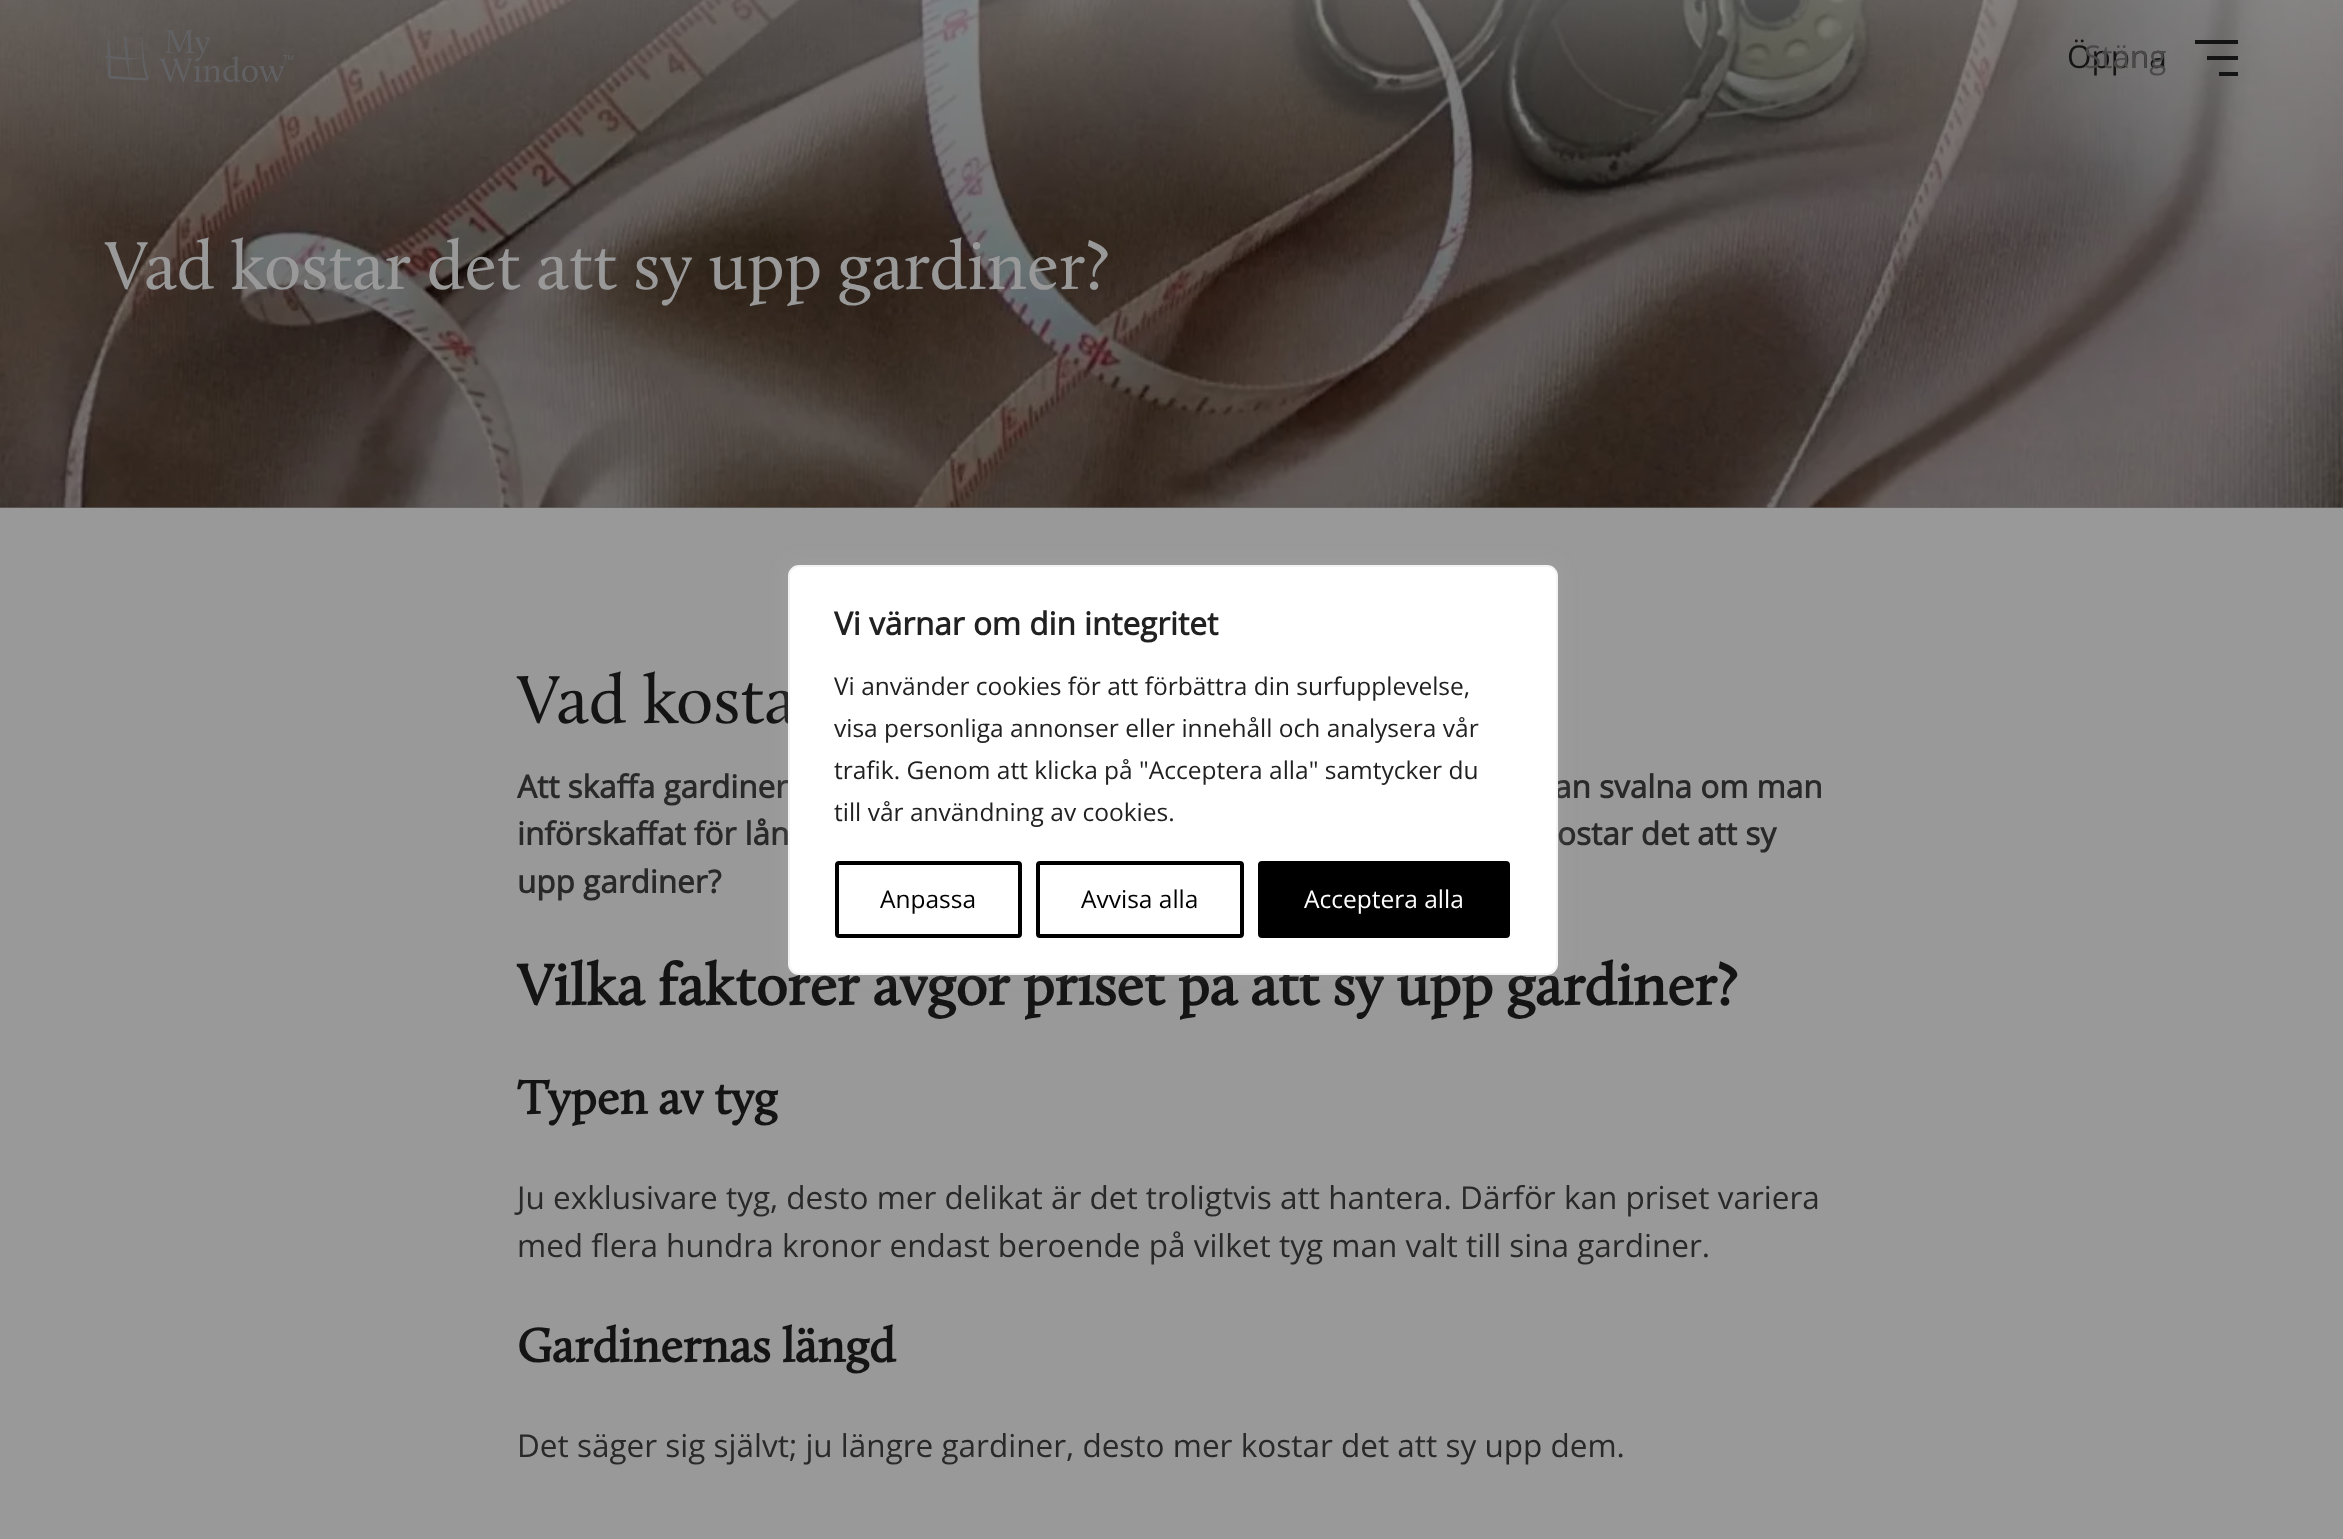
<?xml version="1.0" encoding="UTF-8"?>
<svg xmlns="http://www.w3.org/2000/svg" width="2343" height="1539">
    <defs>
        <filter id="blur1" x="-50%" y="-200%" width="200%" height="500%"><feGaussianBlur stdDeviation="9"/></filter>
    </defs>
    <rect width="100%" height="100%" fill="#999999"/>
    <rect x="0" y="507" width="2343" height="1" fill="#6F6F6F"/>
    <image x="0" y="0" width="2343" height="508" href="img_02.png"/>
    <image x="105" y="30" width="189" height="52" href="img_01.png"/>
    <text x="2067" y="68" font-family="Open Sans" font-size="31.5" fill="#141414">Öppna</text>
    <text x="2084" y="68" font-family="Open Sans" font-size="31.5" fill="#4A4949">Stäng</text>
    <rect x="2195" y="40" width="43" height="4" fill="#141414"/>
    <rect x="2207" y="56" width="31" height="4" fill="#141414"/>
    <rect x="2219" y="72" width="19" height="4" fill="#141414"/>
    <text x="105" y="289" font-family="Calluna" font-size="70" fill="#999999">Vad kostar det att sy upp gardiner?</text>
    <text x="517" y="723" font-family="Calluna" font-size="70" fill="#141414">Vad kosta</text>
    <text x="517" y="798" font-family="Open Sans" font-size="31.5" font-weight="700" fill="#292929">Att skaffa gardiner</text>
    <text x="1554" y="798" font-family="Open Sans" font-size="31.5" font-weight="700" fill="#292929">an svalna om man</text>
    <text x="517" y="845" font-family="Open Sans" font-size="31.5" font-weight="700" fill="#292929">införskaffat för lån</text>
    <text x="1557" y="845" font-family="Open Sans" font-size="31.5" font-weight="700" fill="#292929">ostar det att sy</text>
    <text x="517" y="893" font-family="Open Sans" font-size="31.5" font-weight="700" fill="#292929">upp gardiner?</text>
    <text x="517" y="1005" font-family="Calluna" font-size="59.5" font-weight="700" fill="#141414">Vilka faktorer avgör priset på att sy upp gardiner?</text>
    <text x="517" y="1114" font-family="Calluna" font-size="49" font-weight="700" fill="#141414">Typen av tyg</text>
    <text font-family="Open Sans" font-size="31.5" fill="#292929">
        <tspan x="517" y="1209">Ju exklusivare tyg, desto mer delikat är det troligtvis att hantera. Därför kan priset variera</tspan>
        <tspan x="517" y="1257">med flera hundra kronor endast beroende på vilket tyg man valt till sina gardiner.</tspan>
    </text>
    <text x="517" y="1362" font-family="Calluna" font-size="49" font-weight="700" fill="#141414">Gardinernas längd</text>
    <text x="517" y="1457" font-family="Open Sans" font-size="31.5" fill="#292929">Det säger sig självt; ju längre gardiner, desto mer kostar det att sy upp dem.</text>
    <rect x="788" y="564" width="770" height="409" rx="11" fill="#ACABAB" fill-opacity="0.3" filter="url(#blur1)"/>
    <rect x="789" y="566" width="768" height="408" rx="10" fill="#FFFFFF" stroke="#F4F4F4" stroke-width="2"/>
    <text x="834" y="635" font-family="Open Sans" font-size="31.5" font-weight="700" fill="#212121">Vi värnar om din integritet</text>
    <text font-family="Open Sans" font-size="24.5" fill="#212121">
        <tspan x="834" y="695">Vi använder cookies för att förbättra din surfupplevelse,</tspan>
        <tspan x="834" y="737">visa personliga annonser eller innehåll och analysera vår</tspan>
        <tspan x="834" y="779">trafik. Genom att klicka på "Acceptera alla" samtycker du</tspan>
        <tspan x="834" y="821">till vår användning av cookies.</tspan>
    </text>
    <rect x="837" y="863" width="183" height="73" rx="2" fill="none" stroke="#000000" stroke-width="4"/>
    <text x="880" y="908" font-family="Open Sans" font-size="24.5" fill="#000000">Anpassa</text>
    <rect x="1038" y="863" width="204" height="73" rx="2" fill="none" stroke="#000000" stroke-width="4"/>
    <text x="1081" y="908" font-family="Open Sans" font-size="24.5" fill="#000000">Avvisa alla</text>
    <rect x="1260" y="863" width="248" height="73" rx="2" fill="#000000" stroke="#000000" stroke-width="4"/>
    <text x="1304" y="908" font-family="Open Sans" font-size="24.5" fill="#FFFFFF">Acceptera alla</text>
</svg>
